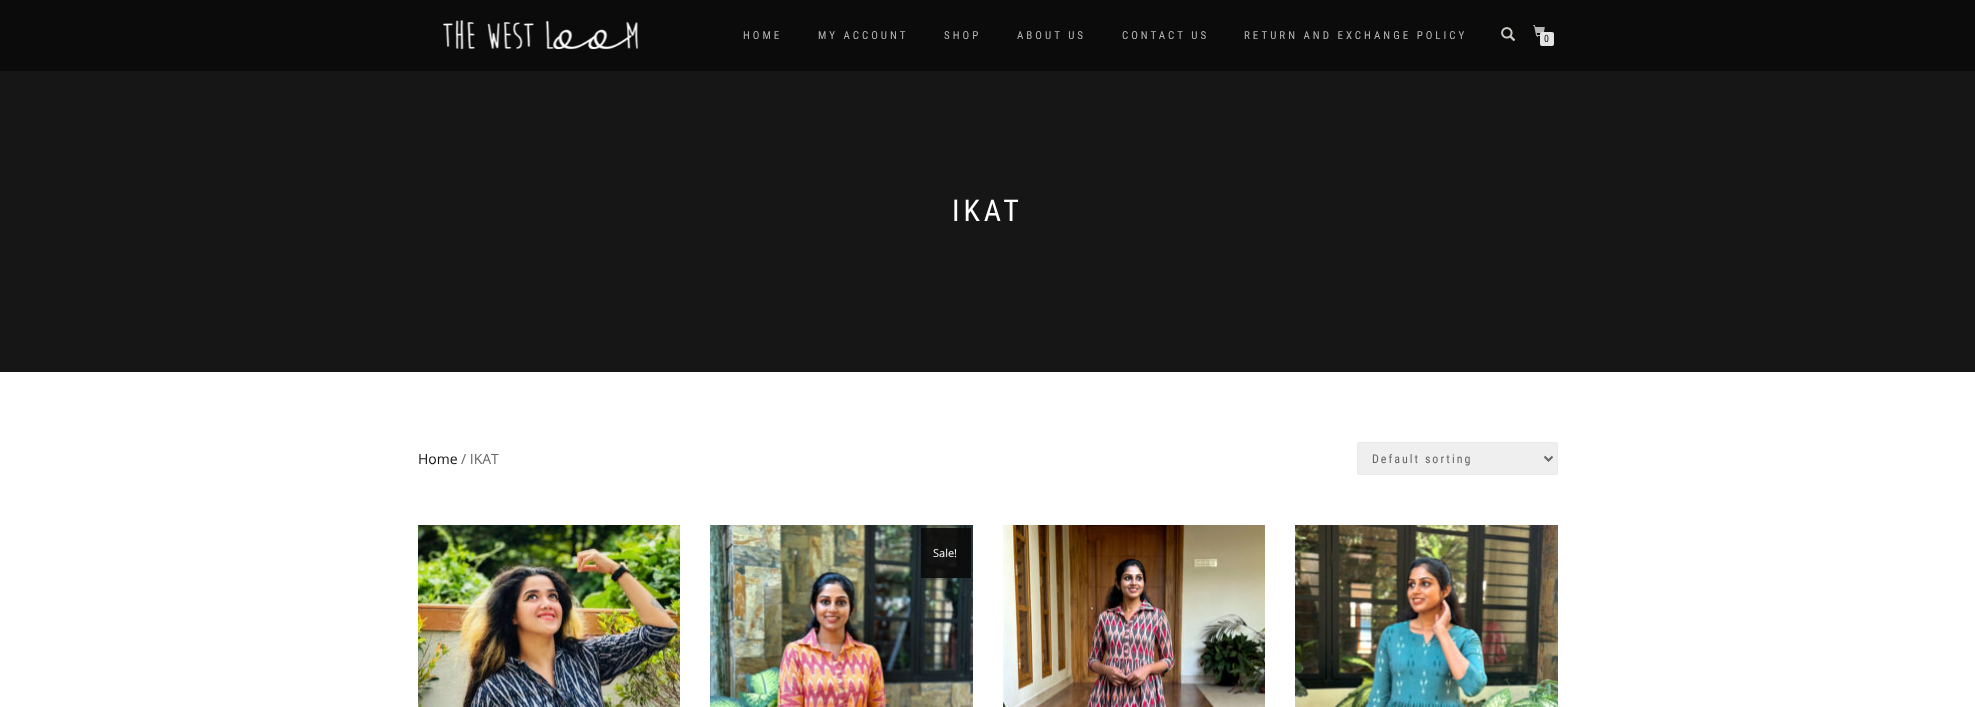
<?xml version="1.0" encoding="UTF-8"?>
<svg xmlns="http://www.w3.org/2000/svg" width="1975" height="707">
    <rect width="100%" height="100%" fill="#FFFFFF"/>
    <rect x="0" y="0" width="1975" height="71" fill="#0B0B0B"/>
    <image x="443" y="20" width="196" height="30" href="img_01.png"/>
    <text x="743" y="39" font-family="Roboto Condensed" font-size="11" letter-spacing="3" fill="#B6B6B6">HOME</text>
    <text x="818" y="39" font-family="Roboto Condensed" font-size="11" letter-spacing="3" fill="#B6B6B6">MY ACCOUNT</text>
    <text x="944" y="39" font-family="Roboto Condensed" font-size="11" letter-spacing="3" fill="#B6B6B6">SHOP</text>
    <text x="1017" y="39" font-family="Roboto Condensed" font-size="11" letter-spacing="3" fill="#B6B6B6">ABOUT US</text>
    <text x="1122" y="39" font-family="Roboto Condensed" font-size="11" letter-spacing="3" fill="#B6B6B6">CONTACT US</text>
    <text x="1244" y="39" font-family="Roboto Condensed" font-size="11" letter-spacing="3" fill="#B6B6B6">RETURN AND EXCHANGE POLICY</text>
    <image x="1501" y="27" width="15" height="14" href="img_02.png"/>
    <image x="1533" y="25" width="12" height="12" href="img_03.png"/>
    <rect x="1540" y="32" width="14" height="14" rx="2" fill="#E5E5E5"/>
    <text x="1544" y="42" font-family="Roboto Condensed" font-size="10" fill="#111111">0</text>
    <rect x="0" y="71" width="1975" height="301" fill="#161616"/>
    <text x="952" y="221" font-family="Roboto Condensed" font-size="30" letter-spacing="4" fill="#FFFFFF">IKAT</text>
    <text x="418" y="464" font-family="Open Sans" font-size="14" fill="#111111">Home</text>
    <text x="461" y="464" font-family="Open Sans" font-size="14" fill="#666666">/ IKAT</text>
    <rect x="1357.5" y="442.5" width="200" height="32" rx="1.5" fill="#EFEFEF" stroke="#EAEAEA"/>
    <path d="M 1544.5 456.5 L 1548.5 460.5 L 1552.5 456.5" fill="none" stroke="#666666" stroke-width="2"/>
    <text x="1372" y="463" font-family="Roboto Condensed" font-size="12" letter-spacing="2" fill="#666666">Default sorting</text>
    <image x="418" y="525" width="262" height="182" href="img_04.png"/>
    <image x="710" y="525" width="263" height="182" href="img_05.png"/>
    <rect x="921" y="528" width="50" height="50" fill="#0A0A0A" fill-opacity="0.9"/>
    <text x="933" y="557" font-family="Open Sans" font-size="11" fill="#FFFFFF">Sale!</text>
    <image x="1003" y="525" width="262" height="182" href="img_06.png"/>
    <image x="1295" y="525" width="263" height="182" href="img_07.png"/>
</svg>
